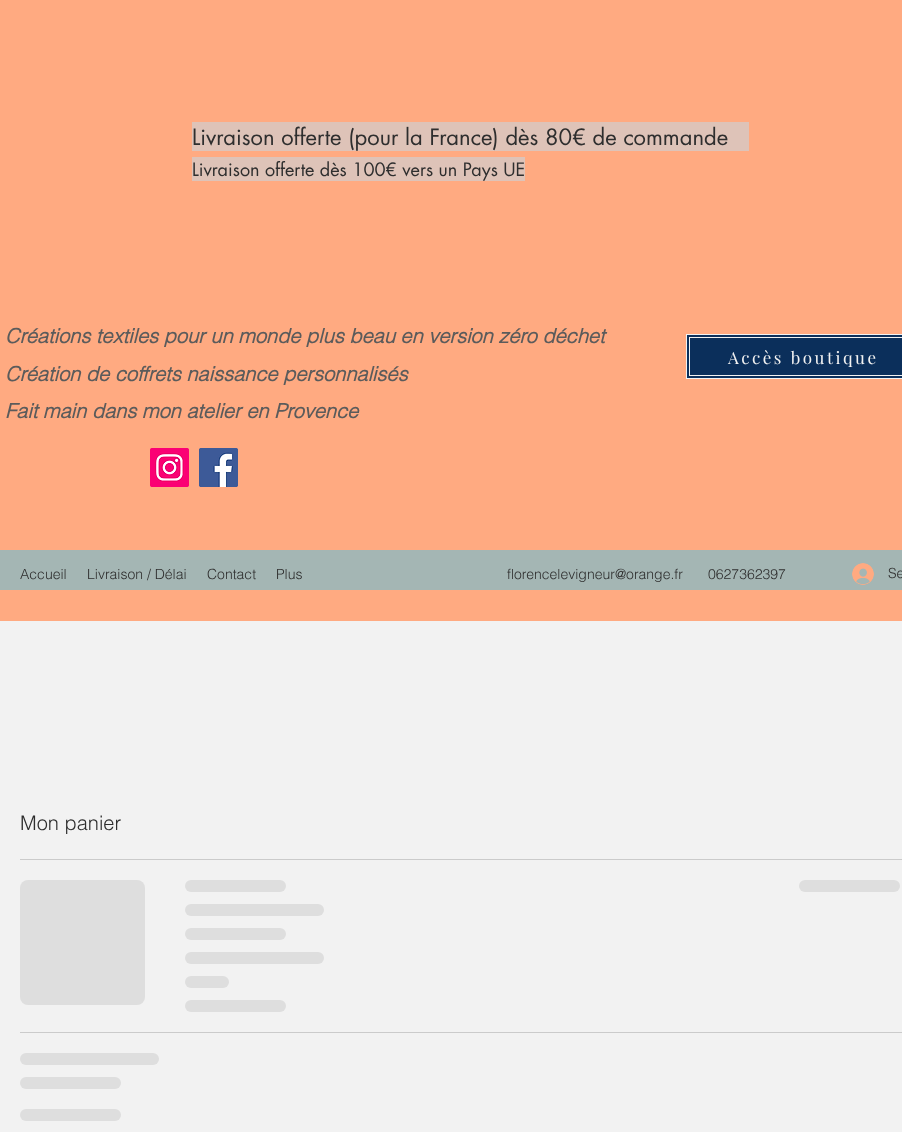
<?xml version="1.0" encoding="UTF-8"?>
<svg xmlns="http://www.w3.org/2000/svg" width="902" height="1132">
    <defs>
        <linearGradient id="g1" gradientUnits="userSpaceOnUse" x1="20" y1="943" x2="520" y2="943"><stop offset="0.25" stop-color="#DEDEDE"/><stop offset="0.37" stop-color="#CBCBCB"/><stop offset="0.63" stop-color="#DEDEDE"/></linearGradient>
        <linearGradient id="g2" gradientUnits="userSpaceOnUse" x1="185" y1="886" x2="589" y2="886"><stop offset="0.25" stop-color="#DEDEDE"/><stop offset="0.37" stop-color="#CBCBCB"/><stop offset="0.63" stop-color="#DEDEDE"/></linearGradient>
        <linearGradient id="g3" gradientUnits="userSpaceOnUse" x1="185" y1="910" x2="741" y2="910"><stop offset="0.25" stop-color="#DEDEDE"/><stop offset="0.37" stop-color="#CBCBCB"/><stop offset="0.63" stop-color="#DEDEDE"/></linearGradient>
        <linearGradient id="g4" gradientUnits="userSpaceOnUse" x1="185" y1="934" x2="589" y2="934"><stop offset="0.25" stop-color="#DEDEDE"/><stop offset="0.37" stop-color="#CBCBCB"/><stop offset="0.63" stop-color="#DEDEDE"/></linearGradient>
        <linearGradient id="g5" gradientUnits="userSpaceOnUse" x1="185" y1="958" x2="741" y2="958"><stop offset="0.25" stop-color="#DEDEDE"/><stop offset="0.37" stop-color="#CBCBCB"/><stop offset="0.63" stop-color="#DEDEDE"/></linearGradient>
        <linearGradient id="g6" gradientUnits="userSpaceOnUse" x1="185" y1="982" x2="361" y2="982"><stop offset="0.25" stop-color="#DEDEDE"/><stop offset="0.37" stop-color="#CBCBCB"/><stop offset="0.63" stop-color="#DEDEDE"/></linearGradient>
        <linearGradient id="g7" gradientUnits="userSpaceOnUse" x1="185" y1="1006" x2="589" y2="1006"><stop offset="0.25" stop-color="#DEDEDE"/><stop offset="0.37" stop-color="#CBCBCB"/><stop offset="0.63" stop-color="#DEDEDE"/></linearGradient>
        <linearGradient id="g8" gradientUnits="userSpaceOnUse" x1="799" y1="886" x2="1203" y2="886"><stop offset="0.25" stop-color="#DEDEDE"/><stop offset="0.37" stop-color="#CBCBCB"/><stop offset="0.63" stop-color="#DEDEDE"/></linearGradient>
        <linearGradient id="g9" gradientUnits="userSpaceOnUse" x1="20" y1="1059" x2="576" y2="1059"><stop offset="0.25" stop-color="#DEDEDE"/><stop offset="0.37" stop-color="#CBCBCB"/><stop offset="0.63" stop-color="#DEDEDE"/></linearGradient>
        <linearGradient id="g10" gradientUnits="userSpaceOnUse" x1="20" y1="1083" x2="424" y2="1083"><stop offset="0.25" stop-color="#DEDEDE"/><stop offset="0.37" stop-color="#CBCBCB"/><stop offset="0.63" stop-color="#DEDEDE"/></linearGradient>
        <linearGradient id="g11" gradientUnits="userSpaceOnUse" x1="20" y1="1115" x2="424" y2="1115"><stop offset="0.25" stop-color="#DEDEDE"/><stop offset="0.37" stop-color="#CBCBCB"/><stop offset="0.63" stop-color="#DEDEDE"/></linearGradient>
    </defs>
    <rect width="100%" height="100%" fill="#F2F2F2"/>
    <rect x="0" y="0" width="902" height="621" fill="#FFAA81"/>
    <rect x="192" y="122" width="557" height="29" fill="#DEC3B8"/>
    <text x="192" y="145" font-family="futura" font-size="22" fill="#2E2E2E">Livraison offerte (pour la France) dès 80€ de commande</text>
    <rect x="192" y="157" width="333" height="24" fill="#DEC3B8"/>
    <text x="192" y="176" font-family="futura" font-size="18" fill="#2E2E2E">Livraison offerte dès 100€ vers un Pays UE</text>
    <text font-family="helvetica" font-size="20" font-weight="700" font-style="italic" fill="#5B5B5B">
        <tspan x="5" y="343">Créations textiles pour un monde plus beau en version zéro déchet</tspan>
        <tspan x="5" y="381">Création de coffrets naissance personnalisés</tspan>
        <tspan x="5" y="418">Fait main dans mon atelier en Provence</tspan>
    </text>
    <rect x="686.5" y="334.5" width="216" height="44" fill="#0B2F5B" stroke="#F2F2F2"/>
    <rect x="689.5" y="337.5" width="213" height="38" fill="none" stroke="#F2F2F2"/>
    <text x="728" y="364" font-family="Playfair Display" font-size="17" letter-spacing="2.5" fill="#F2F2F2">Accès boutique</text>
    <image x="150" y="448" width="39" height="39" href="img_01.png"/>
    <image x="199" y="448" width="39" height="39" href="img_02.png"/>
    <rect x="0" y="550" width="902" height="40" fill="#A4B6B4"/>
    <text x="20" y="579" font-family="helvetica" font-size="14" font-weight="300" fill="#2E2E2E">Accueil</text>
    <text x="87" y="579" font-family="helvetica" font-size="14" font-weight="300" fill="#2E2E2E">Livraison / Délai</text>
    <text x="207" y="579" font-family="helvetica" font-size="14" font-weight="300" fill="#2E2E2E">Contact</text>
    <text x="276" y="579" font-family="helvetica" font-size="14" font-weight="300" fill="#2E2E2E">Plus</text>
    <text x="507" y="579" font-family="helvetica" font-size="14" font-weight="300" fill="#2E2E2E">florencelevigneur@orange.fr</text>
    <text x="708" y="579" font-family="helvetica" font-size="14" font-weight="300" fill="#2E2E2E">0627362397</text>
    <image x="852" y="563" width="22" height="22" href="img_03.png"/>
    <text x="888" y="578" font-family="helvetica" font-size="14" font-weight="300" fill="#2E2E2E">Se</text>
    <rect x="20" y="859" width="882" height="1" fill="#CBCBCB"/>
    <text x="20" y="830" font-family="helvetica" font-size="20" font-weight="300" fill="#2E2E2E">Mon panier</text>
    <rect x="20" y="880" width="125" height="125" rx="8" fill="url(#g1)"/>
    <rect x="185" y="880" width="101" height="12" rx="6" fill="url(#g2)"/>
    <rect x="185" y="904" width="139" height="12" rx="6" fill="url(#g3)"/>
    <rect x="185" y="928" width="101" height="12" rx="6" fill="url(#g4)"/>
    <rect x="185" y="952" width="139" height="12" rx="6" fill="url(#g5)"/>
    <rect x="185" y="976" width="44" height="12" rx="6" fill="url(#g6)"/>
    <rect x="185" y="1000" width="101" height="12" rx="6" fill="url(#g7)"/>
    <rect x="799" y="880" width="101" height="12" rx="6" fill="url(#g8)"/>
    <rect x="20" y="1032" width="882" height="1" fill="#CBCBCB"/>
    <rect x="20" y="1053" width="139" height="12" rx="6" fill="url(#g9)"/>
    <rect x="20" y="1077" width="101" height="12" rx="6" fill="url(#g10)"/>
    <rect x="20" y="1109" width="101" height="12" rx="6" fill="url(#g11)"/>
</svg>
